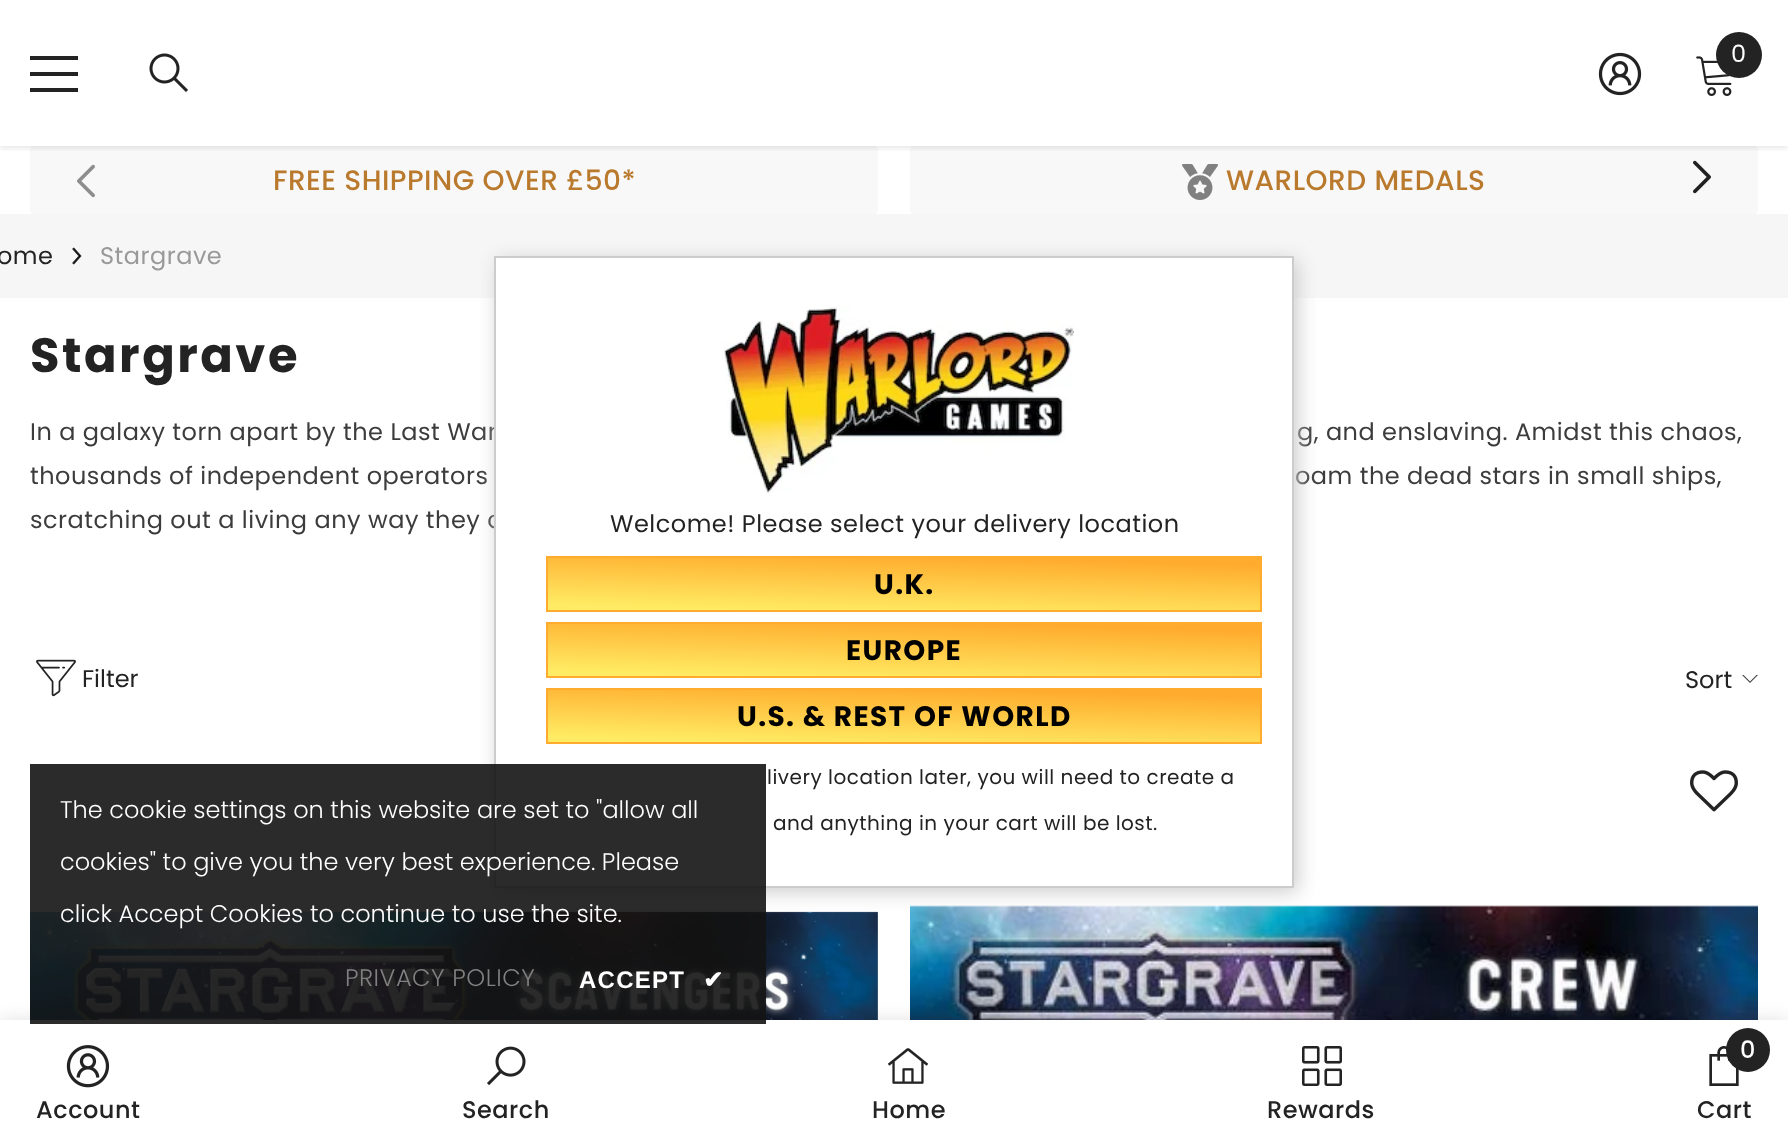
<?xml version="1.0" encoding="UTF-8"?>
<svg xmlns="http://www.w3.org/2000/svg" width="1788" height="1144">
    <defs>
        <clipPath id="clip1"><rect x="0" y="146" width="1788" height="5"/></clipPath>
        <filter id="blur1" x="-50%" y="-200%" width="200%" height="500%"><feGaussianBlur stdDeviation="3"/></filter>
        <filter id="blur2" x="-50%" y="-200%" width="200%" height="500%"><feGaussianBlur stdDeviation="9"/></filter>
        <filter id="blur3" x="-50%" y="-200%" width="200%" height="500%"><feGaussianBlur stdDeviation="10"/></filter>
        <linearGradient id="g1" gradientUnits="userSpaceOnUse" x1="905" y1="550" x2="903" y2="618"><stop offset="0.07" stop-color="#FFAB2D"/><stop offset="0.96" stop-color="#FFEC64"/></linearGradient>
        <linearGradient id="g2" gradientUnits="userSpaceOnUse" x1="905" y1="616" x2="903" y2="684"><stop offset="0.07" stop-color="#FFAB2D"/><stop offset="0.96" stop-color="#FFEC64"/></linearGradient>
        <linearGradient id="g3" gradientUnits="userSpaceOnUse" x1="905" y1="682" x2="903" y2="750"><stop offset="0.07" stop-color="#FFAB2D"/><stop offset="0.96" stop-color="#FFEC64"/></linearGradient>
    </defs>
    <rect width="100%" height="100%" fill="#FFFFFF"/>
    <rect x="30" y="146" width="848" height="68" rx="4" fill="#F8F8F8"/>
    <rect x="910" y="146" width="848" height="68" rx="4" fill="#F8F8F8"/>
    <g clip-path="url(#clip1)">
        <rect x="0" y="2" width="1788" height="146" fill="#000000" fill-opacity="0.1" filter="url(#blur1)"/>
    </g>
    <rect x="30" y="72" width="48" height="4" fill="#232323"/>
    <rect x="30" y="56" width="48" height="4" fill="#232323"/>
    <rect x="30" y="88" width="48" height="4" fill="#232323"/>
    <image x="149" y="53" width="39" height="39" href="img_01.png"/>
    <image x="1598" y="52" width="44" height="44" href="img_02.png"/>
    <image x="1696" y="56" width="36" height="40" href="img_03.png"/>
    <circle cx="1739" cy="55" r="23" fill="#232323"/>
    <text x="1731" y="62" font-family="Poppins" font-size="24" fill="#FFFFFF">0</text>
    <image x="77" y="164" width="18" height="34" href="img_04.png"/>
    <image x="1693" y="160" width="18" height="34" href="img_05.png"/>
    <text x="273" y="190" font-family="Poppins" font-size="28" font-weight="500" letter-spacing="0.5" fill="#BA7A2D">FREE SHIPPING OVER £50*</text>
    <image x="1182" y="164" width="36" height="36" href="img_06.png"/>
    <text x="1226" y="190" font-family="Poppins" font-size="28" font-weight="500" letter-spacing="0.5" fill="#BA7A2D">WARLORD MEDALS</text>
    <rect x="0" y="214" width="1788" height="84" fill="#F6F6F6"/>
    <text x="-3" y="264" font-family="Poppins" font-size="24" letter-spacing="0.5" fill="#232323">ome</text>
    <image x="72" y="247" width="10" height="18" href="img_07.png"/>
    <text x="100" y="264" font-family="Poppins" font-size="24" letter-spacing="0.5" fill="#999999">Stargrave</text>
    <text x="30" y="372" font-family="Poppins" font-size="48" font-weight="700" letter-spacing="2.5" fill="#232323">Stargrave</text>
    <text x="30" y="440" font-family="Poppins" font-size="24" letter-spacing="0.5" fill="#3C3C3C">In a galaxy torn apart by the Last War</text>
    <text x="1297" y="440" font-family="Poppins" font-size="24" letter-spacing="0.5" fill="#3C3C3C">g, and enslaving. Amidst this chaos,</text>
    <text x="30" y="484" font-family="Poppins" font-size="24" letter-spacing="0.5" fill="#3C3C3C">thousands of independent operators</text>
    <text x="1295" y="484" font-family="Poppins" font-size="24" letter-spacing="0.5" fill="#3C3C3C">oam the dead stars in small ships,</text>
    <text x="30" y="528" font-family="Poppins" font-size="24" letter-spacing="0.5" fill="#3C3C3C">scratching out a living any way they c</text>
    <image x="36" y="659" width="40" height="38" href="img_08.png"/>
    <text x="82" y="687" font-family="Poppins" font-size="24" fill="#232323">Filter</text>
    <text x="1685" y="688" font-family="Poppins" font-size="24" fill="#232323">Sort</text>
    <image x="1742" y="675" width="16" height="8" href="img_09.png"/>
    <image x="30" y="911" width="848" height="109" href="img_10.png"/>
    <image x="1690" y="770" width="48" height="42" href="img_11.png"/>
    <image x="910" y="905" width="848" height="115" href="img_12.png"/>
    <rect x="0" y="1020" width="1788" height="124" fill="#000000" fill-opacity="0.12" filter="url(#blur2)"/>
    <rect x="0" y="1020" width="1788" height="124" fill="#FFFFFF"/>
    <image x="66" y="1045" width="44" height="43" href="img_13.png"/>
    <text x="36" y="1118" font-family="Poppins" font-size="24" font-weight="500" letter-spacing="0.5" fill="#232323">Account</text>
    <image x="487" y="1046" width="39" height="40" href="img_14.png"/>
    <text x="462" y="1118" font-family="Poppins" font-size="24" font-weight="500" letter-spacing="0.5" fill="#232323">Search</text>
    <image x="888" y="1048" width="40" height="36" href="img_15.png"/>
    <text x="872" y="1118" font-family="Poppins" font-size="24" font-weight="500" letter-spacing="0.5" fill="#232323">Home</text>
    <image x="1302" y="1046" width="40" height="40" href="img_16.png"/>
    <text x="1267" y="1118" font-family="Poppins" font-size="24" font-weight="500" letter-spacing="0.5" fill="#232323">Rewards</text>
    <image x="1709" y="1046" width="30" height="40" href="img_17.png"/>
    <circle cx="1748" cy="1050" r="22" fill="#232323"/>
    <text x="1740" y="1058" font-family="Poppins" font-size="24" font-weight="500" fill="#FFFFFF">0</text>
    <text x="1697" y="1118" font-family="Poppins" font-size="24" font-weight="500" letter-spacing="0.5" fill="#232323">Cart</text>
    <rect x="498" y="260" width="800" height="632" fill="#CCCCCC" filter="url(#blur3)"/>
    <rect x="495" y="257" width="798" height="630" fill="#FFFFFF" stroke="#CCCCCC" stroke-width="2"/>
    <image x="722" y="305" width="352" height="188" href="img_18.png"/>
    <text x="610" y="532" font-family="Poppins" font-size="24" letter-spacing="0.5" fill="#232323">Welcome! Please select your delivery location</text>
    <rect x="548" y="558" width="712" height="52" fill="url(#g1)"/>
    <rect x="547" y="557" width="714" height="54" fill="none" stroke="#FFAB2D" stroke-width="2"/>
    <text x="874" y="594" font-family="Poppins" font-size="28" font-weight="700" letter-spacing="1.4" fill="#000000">U.K.</text>
    <rect x="548" y="624" width="712" height="52" fill="url(#g2)"/>
    <rect x="547" y="623" width="714" height="54" fill="none" stroke="#FFAB2D" stroke-width="2"/>
    <text x="846" y="660" font-family="Poppins" font-size="28" font-weight="700" letter-spacing="1.4" fill="#000000">EUROPE</text>
    <rect x="548" y="690" width="712" height="52" fill="url(#g3)"/>
    <rect x="547" y="689" width="714" height="54" fill="none" stroke="#FFAB2D" stroke-width="2"/>
    <text x="737" y="726" font-family="Poppins" font-size="28" font-weight="700" letter-spacing="1.4" fill="#000000">U.S. &amp; REST OF WORLD</text>
    <text x="767" y="784" font-family="Poppins" font-size="20" letter-spacing="0.5" fill="#232323">livery location later, you will need to create a</text>
    <text x="773" y="830" font-family="Poppins" font-size="20" letter-spacing="0.5" fill="#232323">and anything in your cart will be lost.</text>
    <rect x="30" y="764" width="736" height="260" fill="#141414" fill-opacity="0.9"/>
    <text x="60" y="818" font-family="Poppins" font-size="24" font-weight="300" fill="#FFFFFF">The cookie settings on this website are set to "allow all</text>
    <text x="60" y="870" font-family="Poppins" font-size="24" font-weight="300" fill="#FFFFFF">cookies" to give you the very best experience. Please</text>
    <text x="60" y="922" font-family="Poppins" font-size="24" font-weight="300" fill="#FFFFFF">click Accept Cookies to continue to use the site.</text>
    <text x="345" y="986" font-family="Poppins" font-size="24" font-weight="300" letter-spacing="0.5" fill="#818181">PRIVACY POLICY</text>
    <text x="579" y="988" font-family="Liberation Sans" font-size="24" font-weight="700" letter-spacing="1.25" fill="#FFFFFF">ACCEPT</text>
    <text x="703" y="988" font-family="DejaVu Sans" font-size="24" font-weight="700" letter-spacing="1.25" fill="#FFFFFF">✔</text>
</svg>
